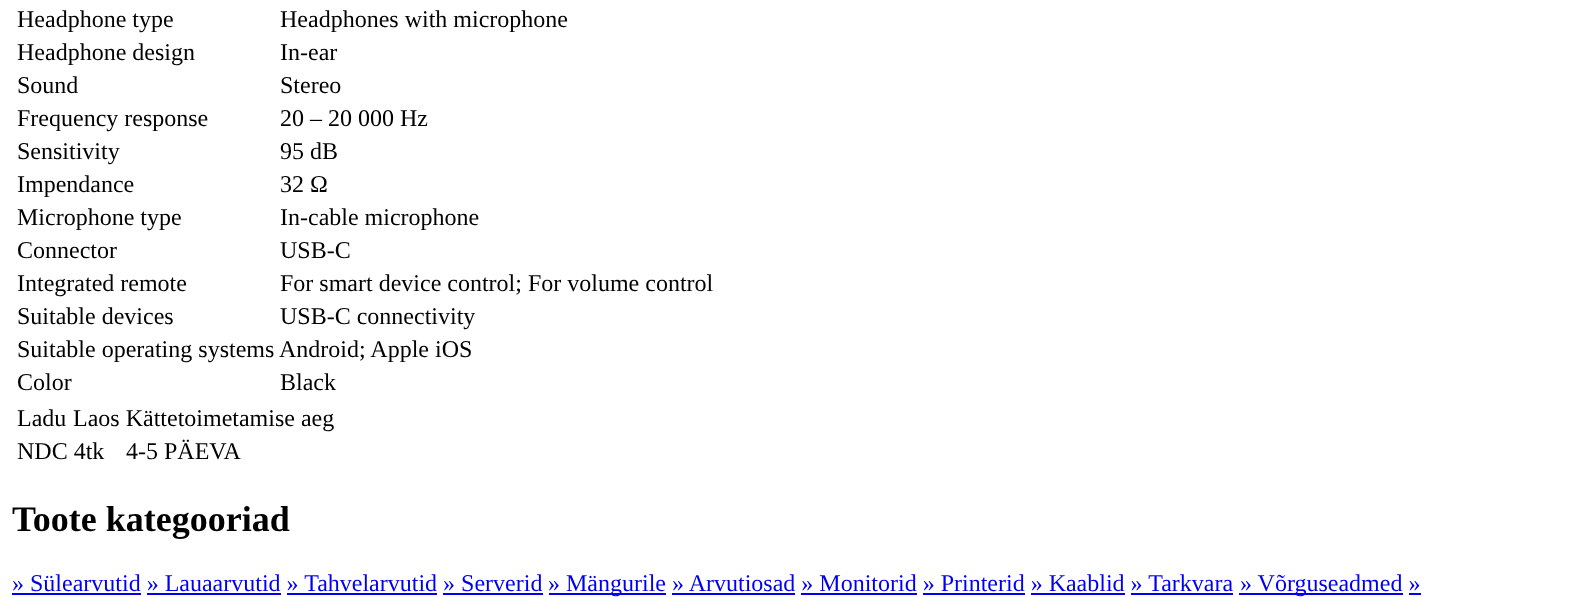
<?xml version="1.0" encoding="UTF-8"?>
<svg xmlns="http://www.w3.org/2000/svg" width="1572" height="597">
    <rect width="100%" height="100%" fill="#FFFFFF"/>
    <text x="17" y="27" font-family="Liberation Serif" font-size="24" fill="#000000">Headphone type</text>
    <text x="280" y="27" font-family="Liberation Serif" font-size="24" fill="#000000">Headphones with microphone</text>
    <text x="17" y="60" font-family="Liberation Serif" font-size="24" fill="#000000">Headphone design</text>
    <text x="280" y="60" font-family="Liberation Serif" font-size="24" fill="#000000">In-ear</text>
    <text x="17" y="93" font-family="Liberation Serif" font-size="24" fill="#000000">Sound</text>
    <text x="280" y="93" font-family="Liberation Serif" font-size="24" fill="#000000">Stereo</text>
    <text x="17" y="126" font-family="Liberation Serif" font-size="24" fill="#000000">Frequency response</text>
    <text x="280" y="126" font-family="Liberation Serif" font-size="24" fill="#000000">20 – 20 000 Hz</text>
    <text x="17" y="159" font-family="Liberation Serif" font-size="24" fill="#000000">Sensitivity</text>
    <text x="280" y="159" font-family="Liberation Serif" font-size="24" fill="#000000">95 dB</text>
    <text x="17" y="192" font-family="Liberation Serif" font-size="24" fill="#000000">Impendance</text>
    <text x="280" y="192" font-family="Liberation Serif" font-size="24" fill="#000000">32 Ω</text>
    <text x="17" y="225" font-family="Liberation Serif" font-size="24" fill="#000000">Microphone type</text>
    <text x="280" y="225" font-family="Liberation Serif" font-size="24" fill="#000000">In-cable microphone</text>
    <text x="17" y="258" font-family="Liberation Serif" font-size="24" fill="#000000">Connector</text>
    <text x="280" y="258" font-family="Liberation Serif" font-size="24" fill="#000000">USB-C</text>
    <text x="17" y="291" font-family="Liberation Serif" font-size="24" fill="#000000">Integrated remote</text>
    <text x="280" y="291" font-family="Liberation Serif" font-size="24" fill="#000000">For smart device control; For volume control</text>
    <text x="17" y="324" font-family="Liberation Serif" font-size="24" fill="#000000">Suitable devices</text>
    <text x="280" y="324" font-family="Liberation Serif" font-size="24" fill="#000000">USB-C connectivity</text>
    <text font-family="Liberation Serif" font-size="24" fill="#000000">
        <tspan x="17" y="357">Suitable operating systems Android; Apple iOS</tspan>
        <tspan x="17" y="390">Color</tspan>
    </text>
    <text x="280" y="390" font-family="Liberation Serif" font-size="24" fill="#000000">Black</text>
    <text x="17" y="426" font-family="Liberation Serif" font-size="24" fill="#000000">Ladu</text>
    <text x="73" y="426" font-family="Liberation Serif" font-size="24" fill="#000000">Laos Kättetoimetamise aeg</text>
    <text x="17" y="459" font-family="Liberation Serif" font-size="24" fill="#000000">NDC 4tk</text>
    <text x="126" y="459" font-family="Liberation Serif" font-size="24" fill="#000000">4-5 PÄEVA</text>
    <text x="12" y="531" font-family="Liberation Serif" font-size="36" font-weight="700" fill="#000000">Toote kategooriad</text>
    <text x="12" y="591" font-family="Liberation Serif" font-size="24" fill="#0000EE">» Sülearvutid » Lauaarvutid » Tahvelarvutid » Serverid</text>
    <rect x="12" y="593" width="129" height="2" fill="#0000EE"/>
    <rect x="549" y="593" width="117" height="2" fill="#0000EE"/>
    <text x="548" y="591" font-family="Liberation Serif" font-size="24" fill="#0000EE">» Mängurile » Arvutiosad » Monitorid » Printerid » Kaablid » Tarkvara</text>
    <rect x="1239" y="593" width="164" height="2" fill="#0000EE"/>
    <text x="1240" y="591" font-family="Liberation Serif" font-size="24" fill="#0000EE">» Võrguseadmed »</text>
    <rect x="147" y="593" width="134" height="2" fill="#0000EE"/>
    <rect x="287" y="593" width="150" height="2" fill="#0000EE"/>
    <rect x="443" y="593" width="100" height="2" fill="#0000EE"/>
    <rect x="672" y="593" width="123" height="2" fill="#0000EE"/>
    <rect x="801" y="593" width="116" height="2" fill="#0000EE"/>
    <rect x="923" y="593" width="102" height="2" fill="#0000EE"/>
    <rect x="1031" y="593" width="94" height="2" fill="#0000EE"/>
    <rect x="1131" y="593" width="102" height="2" fill="#0000EE"/>
    <rect x="1409" y="593" width="12" height="2" fill="#0000EE"/>
</svg>
